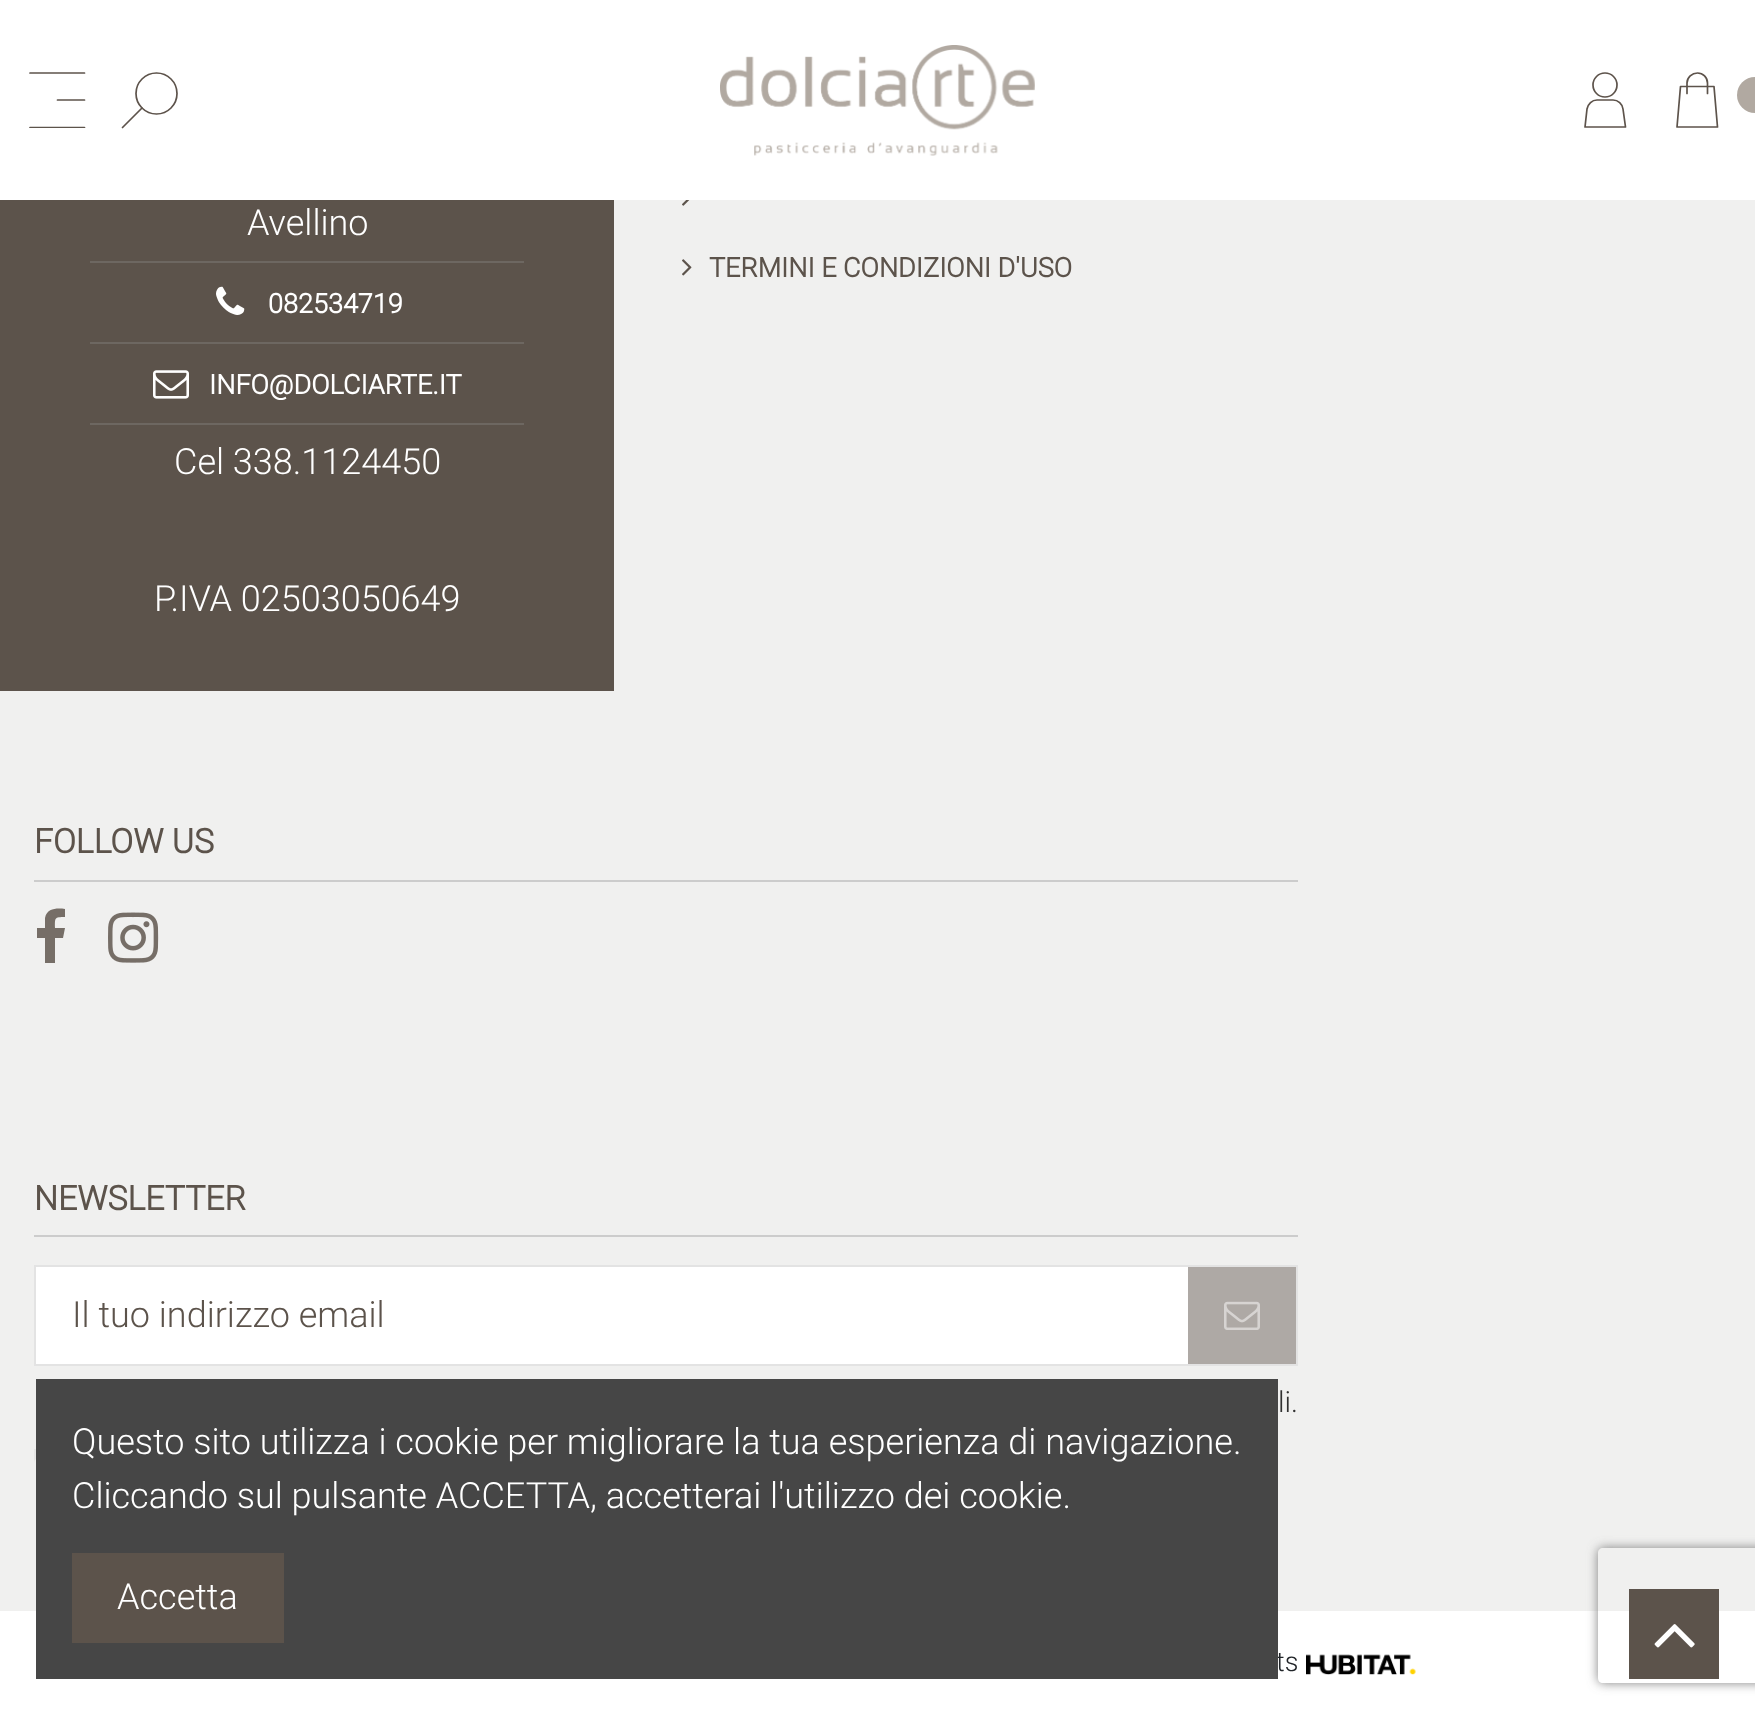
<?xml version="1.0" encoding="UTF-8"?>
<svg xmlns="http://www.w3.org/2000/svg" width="1755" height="1714">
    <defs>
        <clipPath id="clip1"><rect x="29" y="72" width="57" height="56"/></clipPath>
        <clipPath id="clip2"><path d="M 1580 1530 H 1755 V 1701 H 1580 Z M 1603 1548 H 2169 C 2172 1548 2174 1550 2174 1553 V 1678 C 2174 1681 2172 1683 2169 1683 H 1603 C 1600 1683 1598 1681 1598 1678 V 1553 C 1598 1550 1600 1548 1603 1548 Z" clip-rule="evenodd"/></clipPath>
        <filter id="blur1" x="-50%" y="-200%" width="200%" height="500%"><feGaussianBlur stdDeviation="5.5"/></filter>
    </defs>
    <rect width="100%" height="100%" fill="#F0F0EF"/>
    <rect x="0" y="0" width="1755" height="200" fill="#FFFFFF"/>
    <path d="M 30 73 H 84.5" fill="none" stroke="#5D534B" stroke-width="1.7" stroke-linecap="round" stroke-linejoin="round"/>
    <g clip-path="url(#clip1)">
        <path d="M 30 127.5 H 84.5" fill="none" stroke="#5D534B" stroke-width="1.7" stroke-linecap="round" stroke-linejoin="round"/>
    </g>
    <path d="M 57.5 100 H 84.5" fill="none" stroke="#5D534B" stroke-width="1.7" stroke-linecap="round" stroke-linejoin="round"/>
    <circle cx="156.5" cy="93.5" r="20.5" fill="none" stroke="#5D534B" stroke-width="1.7"/>
    <path d="M 122.5 127.5 L 142 108" fill="none" stroke="#5D534B" stroke-width="1.7" stroke-linecap="round" stroke-linejoin="round"/>
    <image x="720" y="45" width="315" height="111" href="img_01.png"/>
    <circle cx="1605" cy="85" r="12" fill="none" stroke="#5D534B" stroke-width="1.7"/>
    <path d="M 1613 100 H 1597 C 1592 100 1588 104 1587 109 L 1585 127 H 1625.5 L 1623 109 C 1622.5 104 1618 100 1613 100 Z" fill="none" stroke="#5D534B" stroke-width="1.7" stroke-linecap="round" stroke-linejoin="round"/>
    <path d="M 1717.5 127 H 1677 L 1680.5 86.5 H 1714 Z M 1687 93.5 V 83 C 1687 77.5 1692 73 1697.5 73 C 1703 73 1707.5 77.5 1707.5 83 V 93.5" fill="none" stroke="#5D534B" stroke-width="1.7" stroke-linecap="round" stroke-linejoin="round"/>
    <circle cx="1755" cy="95" r="18" fill="#B1A9A1"/>
    <rect x="0" y="200" width="614" height="491" fill="#5C534B"/>
    <text x="247" y="235" font-family="Roboto" font-size="36" font-weight="300" fill="#FFFFFF">Avellino</text>
    <rect x="90" y="261" width="434" height="2" fill="#6D6761"/>
    <image x="216" y="286" width="29" height="29" href="img_02.png"/>
    <text x="268" y="313" font-family="Roboto" font-size="27" font-weight="700" fill="#FFFFFF">082534719</text>
    <rect x="90" y="342" width="434" height="2" fill="#6D6761"/>
    <image x="153" y="370" width="36" height="29" href="img_03.png"/>
    <text x="209" y="394" font-family="Roboto" font-size="27" font-weight="700" fill="#FFFFFF">INFO@DOLCIARTE.IT</text>
    <rect x="90" y="423" width="434" height="2" fill="#6D6761"/>
    <text x="174" y="474" font-family="Roboto" font-size="36" font-weight="300" fill="#FFFFFF">Cel 338.1124450</text>
    <text x="154" y="611" font-family="Roboto" font-size="36" font-weight="300" fill="#FFFFFF">P.IVA 02503050649</text>
    <image x="682" y="200" width="8" height="6" href="img_04.png"/>
    <image x="682" y="259" width="10" height="17" href="img_05.png"/>
    <text x="709" y="277" font-family="Roboto" font-size="27" font-weight="700" fill="#5C534B">TERMINI E CONDIZIONI D'USO</text>
    <rect x="34" y="880" width="1264" height="2" fill="#CCCCCC"/>
    <text x="34" y="853" font-family="Roboto" font-size="33.75" font-weight="700" fill="#5C534B">FOLLOW US</text>
    <path d="M 65 909 V 917 C 54 917 55 918 55 928 H 65 L 63 938 H 55 V 963 H 45 V 938 H 37 V 928 H 45 V 918 C 47 908 57 908 65 909 Z" fill="#766E67"/>
    <image x="108" y="912" width="51" height="51" href="img_06.png"/>
    <rect x="34" y="1235" width="1264" height="2" fill="#CCCCCC"/>
    <text x="34" y="1210" font-family="Roboto" font-size="33.75" font-weight="700" fill="#5C534B">NEWSLETTER</text>
    <rect x="36" y="1267" width="1152" height="97" fill="#FFFFFF"/>
    <rect x="35" y="1266" width="1262" height="99" fill="none" stroke="#E3E3E3" stroke-width="2"/>
    <text x="72" y="1327" font-family="Roboto" font-size="36" font-weight="300" fill="#5C534B">Il tuo indirizzo email</text>
    <rect x="1188" y="1267" width="108" height="97" fill="#AEA9A5"/>
    <image x="1224" y="1301" width="36" height="29" href="img_07.png"/>
    <text x="1278" y="1412" font-family="Roboto" font-size="29" font-weight="300" fill="#303030">li.</text>
    <rect x="35" y="1450" width="34" height="34" fill="none" stroke="#E6E6E5" stroke-width="2"/>
    <rect x="35" y="1459" width="34" height="34" rx="4" fill="none" stroke="#F0F0EF" stroke-width="2"/>
    <rect x="0" y="1611" width="1755" height="103" fill="#FFFFFF"/>
    <rect x="1629" y="1589" width="90" height="90" fill="#5C534B"/>
    <image x="1654" y="1624" width="41" height="24" href="img_09.png"/>
    <g clip-path="url(#clip2)">
        <rect x="1598" y="1548" width="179" height="135" rx="5" fill="#808080" filter="url(#blur1)"/>
    </g>
    <text x="1276" y="1671" font-family="Roboto" font-size="27" font-weight="300" fill="#212529">ts</text>
    <image x="1306" y="1654" width="110" height="21" href="img_08.png"/>
    <rect x="36" y="1379" width="1242" height="300" fill="#464646"/>
    <text font-family="Roboto" font-size="36" font-weight="300" fill="#FFFFFF">
        <tspan x="72" y="1454">Questo sito utilizza i cookie per migliorare la tua esperienza di navigazione.</tspan>
        <tspan x="72" y="1508">Cliccando sul pulsante ACCETTA, accetterai l'utilizzo dei cookie.</tspan>
    </text>
    <rect x="72" y="1553" width="212" height="90" fill="#5C534B"/>
    <text x="117" y="1609" font-family="Roboto" font-size="36" font-weight="300" fill="#FFFFFF">Accetta</text>
</svg>
